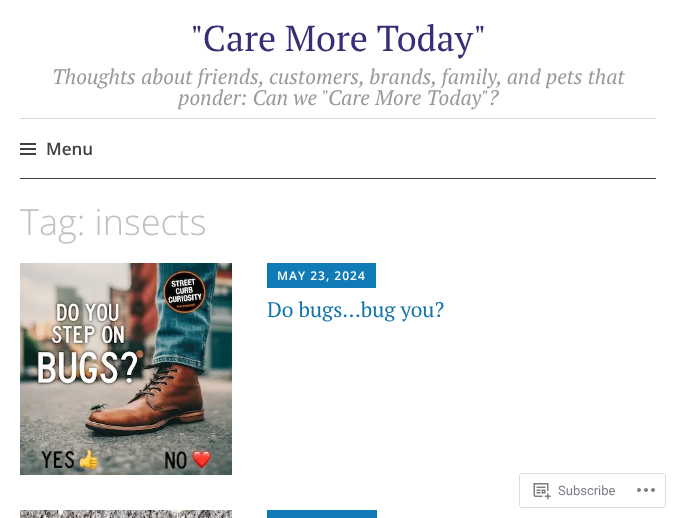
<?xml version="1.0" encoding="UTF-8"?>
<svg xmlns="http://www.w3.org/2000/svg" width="676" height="518">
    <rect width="100%" height="100%" fill="#FFFFFF"/>
    <text x="190" y="51" font-family="PT Serif" font-size="36" fill="#362E77">"Care More Today"</text>
    <text x="52" y="84" font-family="PT Serif" font-size="21" font-style="italic" fill="#999999">Thoughts about friends, customers, brands, family, and pets that</text>
    <text x="178" y="105" font-family="PT Serif" font-size="21" font-style="italic" fill="#999999">ponder: Can we "Care More Today"?</text>
    <rect x="20" y="118" width="636" height="1" fill="#D9D9D9"/>
    <rect x="20" y="178" width="636" height="1" fill="#404040"/>
    <image x="20" y="143" width="16" height="12" href="img_01.png"/>
    <text x="46" y="155" font-family="Open Sans" font-size="17" font-weight="600" fill="#404040">Menu</text>
    <text x="20" y="235" font-family="Open Sans" font-size="36" font-weight="300" fill="#C0C0C0">Tag: insects</text>
    <image x="20" y="263" width="212" height="212" href="img_02.png"/>
    <rect x="267" y="263" width="109" height="25" fill="#117BB8"/>
    <text x="277" y="280" font-family="Open Sans" font-size="12" font-weight="600" letter-spacing="1" fill="#FFFFFF">MAY 23, 2024</text>
    <text x="267" y="317" font-family="PT Serif" font-size="21" fill="#1073AC">Do bugs…bug you?</text>
    <image x="20" y="510" width="212" height="8" href="img_03.png"/>
    <rect x="267" y="510" width="110" height="8" fill="#117BB8"/>
    <rect x="519.5" y="473.5" width="146" height="34" rx="2.5" fill="none" stroke="#DDDDDF"/>
    <image x="533" y="483" width="18" height="17" href="img_04.png"/>
    <text x="558" y="495" font-family="Roboto" font-size="13" fill="#7B7F85">Subscribe</text>
    <image x="637" y="488" width="18" height="4" href="img_05.png"/>
</svg>
